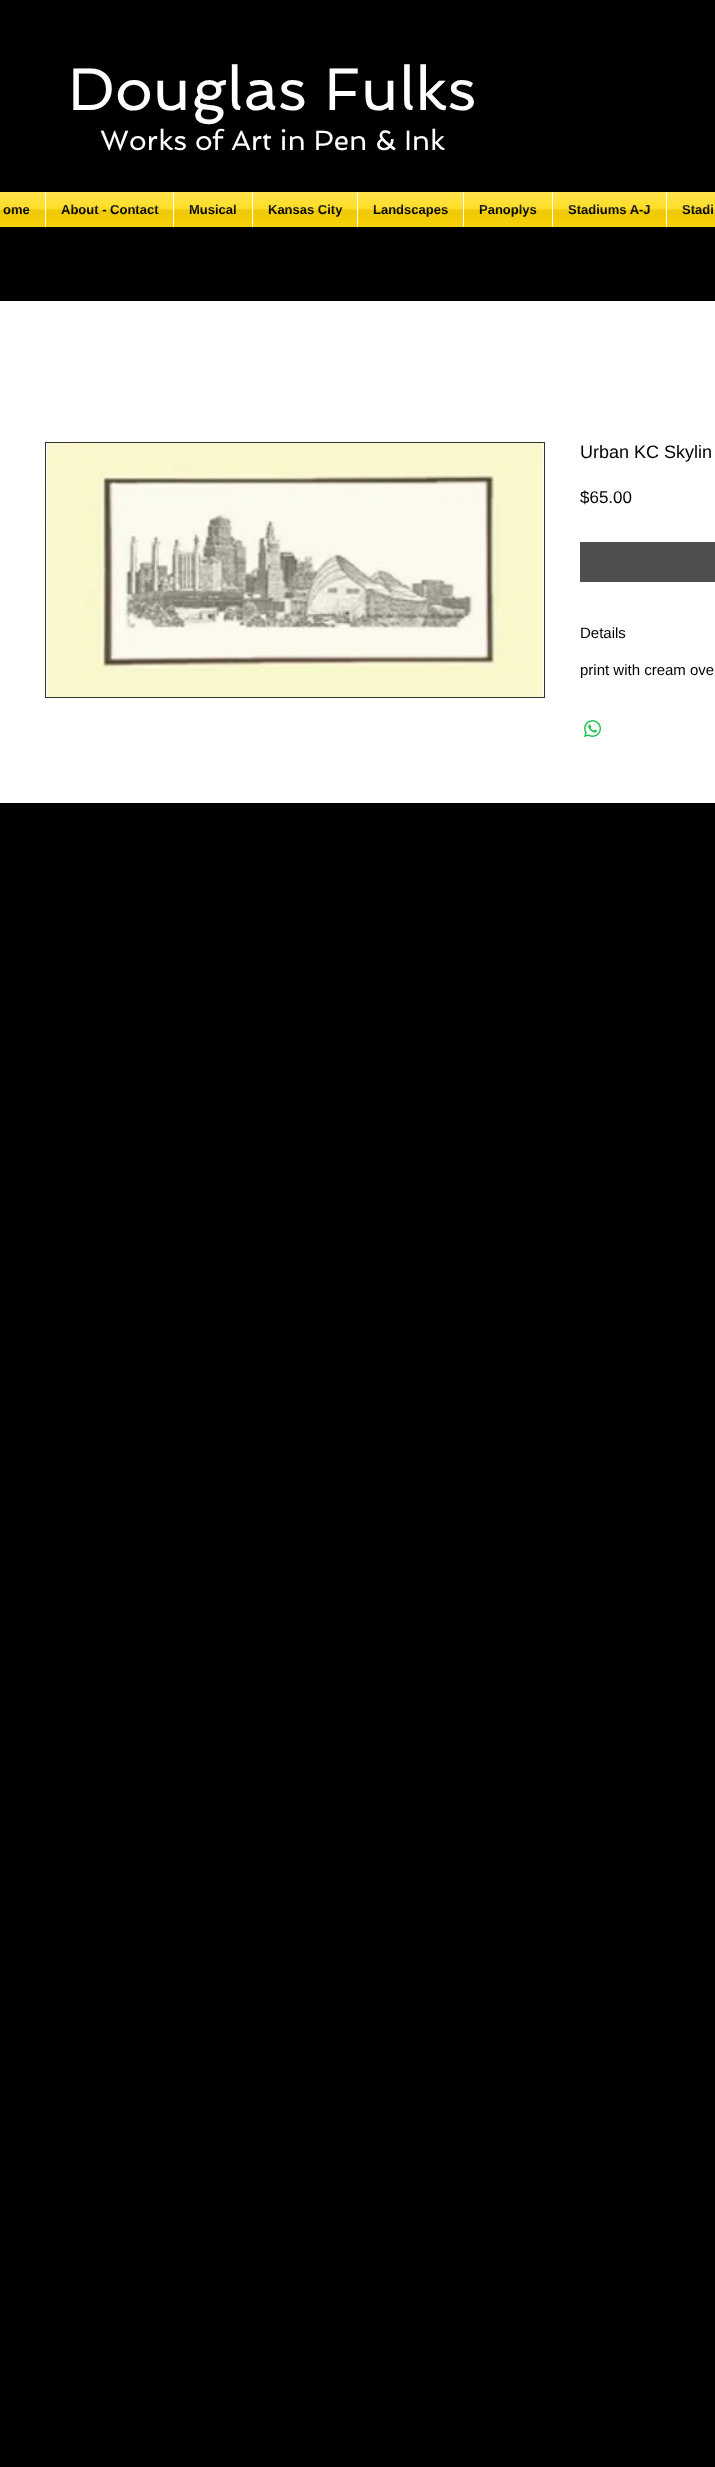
<?xml version="1.0" encoding="UTF-8"?>
<svg xmlns="http://www.w3.org/2000/svg" width="715" height="2467">
    <rect width="100%" height="100%" fill="#000000"/>
    <text x="68" y="110" font-family="Spinnaker" font-size="60" fill="#FFFFFF">Douglas Fulks</text>
    <text x="100" y="150" font-family="Spinnaker" font-size="28" fill="#FFFFFF">Works of Art in Pen &amp; Ink</text>
    <rect x="0" y="192" width="45" height="35" fill="#FFD908"/>
    <text x="3" y="214" font-family="Liberation Sans" font-size="13" font-weight="700" fill="#000000">ome</text>
    <image x="0" y="192" width="45" height="35" href="img_01.png"/>
    <rect x="46" y="192" width="127" height="35" fill="#FFD908"/>
    <rect x="45" y="192" width="1" height="35" fill="#FFFFFF"/>
    <text x="61" y="214" font-family="Liberation Sans" font-size="13" font-weight="700" fill="#000000">About - Contact</text>
    <image x="46" y="192" width="127" height="35" href="img_02.png"/>
    <rect x="174" y="192" width="78" height="35" fill="#FFD908"/>
    <rect x="173" y="192" width="1" height="35" fill="#FFFFFF"/>
    <text x="189" y="214" font-family="Liberation Sans" font-size="13" font-weight="700" fill="#000000">Musical</text>
    <image x="174" y="192" width="78" height="35" href="img_03.png"/>
    <rect x="253" y="192" width="104" height="35" fill="#FFD908"/>
    <rect x="252" y="192" width="1" height="35" fill="#FFFFFF"/>
    <text x="268" y="214" font-family="Liberation Sans" font-size="13" font-weight="700" fill="#000000">Kansas City</text>
    <image x="253" y="192" width="104" height="35" href="img_04.png"/>
    <rect x="358" y="192" width="105" height="35" fill="#FFD908"/>
    <rect x="357" y="192" width="1" height="35" fill="#FFFFFF"/>
    <text x="373" y="214" font-family="Liberation Sans" font-size="13" font-weight="700" fill="#000000">Landscapes</text>
    <image x="358" y="192" width="105" height="35" href="img_05.png"/>
    <rect x="464" y="192" width="88" height="35" fill="#FFD908"/>
    <rect x="463" y="192" width="1" height="35" fill="#FFFFFF"/>
    <text x="479" y="214" font-family="Liberation Sans" font-size="13" font-weight="700" fill="#000000">Panoplys</text>
    <image x="464" y="192" width="88" height="35" href="img_06.png"/>
    <rect x="553" y="192" width="113" height="35" fill="#FFD908"/>
    <rect x="552" y="192" width="1" height="35" fill="#FFFFFF"/>
    <text x="568" y="214" font-family="Liberation Sans" font-size="13" font-weight="700" fill="#000000">Stadiums A-J</text>
    <image x="553" y="192" width="113" height="35" href="img_07.png"/>
    <rect x="667" y="192" width="48" height="35" fill="#FFD908"/>
    <rect x="666" y="192" width="1" height="35" fill="#FFFFFF"/>
    <text x="682" y="214" font-family="Liberation Sans" font-size="13" font-weight="700" fill="#000000">Stadi</text>
    <image x="667" y="192" width="48" height="35" href="img_08.png"/>
    <rect x="0" y="301" width="715" height="502" fill="#FFFFFF"/>
    <rect x="45.5" y="442.5" width="499" height="255" fill="none" stroke="#333333"/>
    <image x="46" y="443" width="498" height="254" href="img_09.png"/>
    <text x="580" y="458" font-family="Liberation Sans" font-size="18" fill="#000000">Urban KC Skylin</text>
    <text x="580" y="503" font-family="Liberation Sans" font-size="17" fill="#000000">$65.00</text>
    <rect x="580" y="542" width="135" height="40" fill="#4E4E4E"/>
    <text x="580" y="638" font-family="Liberation Sans" font-size="15" fill="#000000">Details</text>
    <text x="580" y="675" font-family="Liberation Sans" font-size="15" fill="#000000">print with cream ove</text>
    <image x="584" y="720" width="17" height="17" href="img_10.png"/>
</svg>
